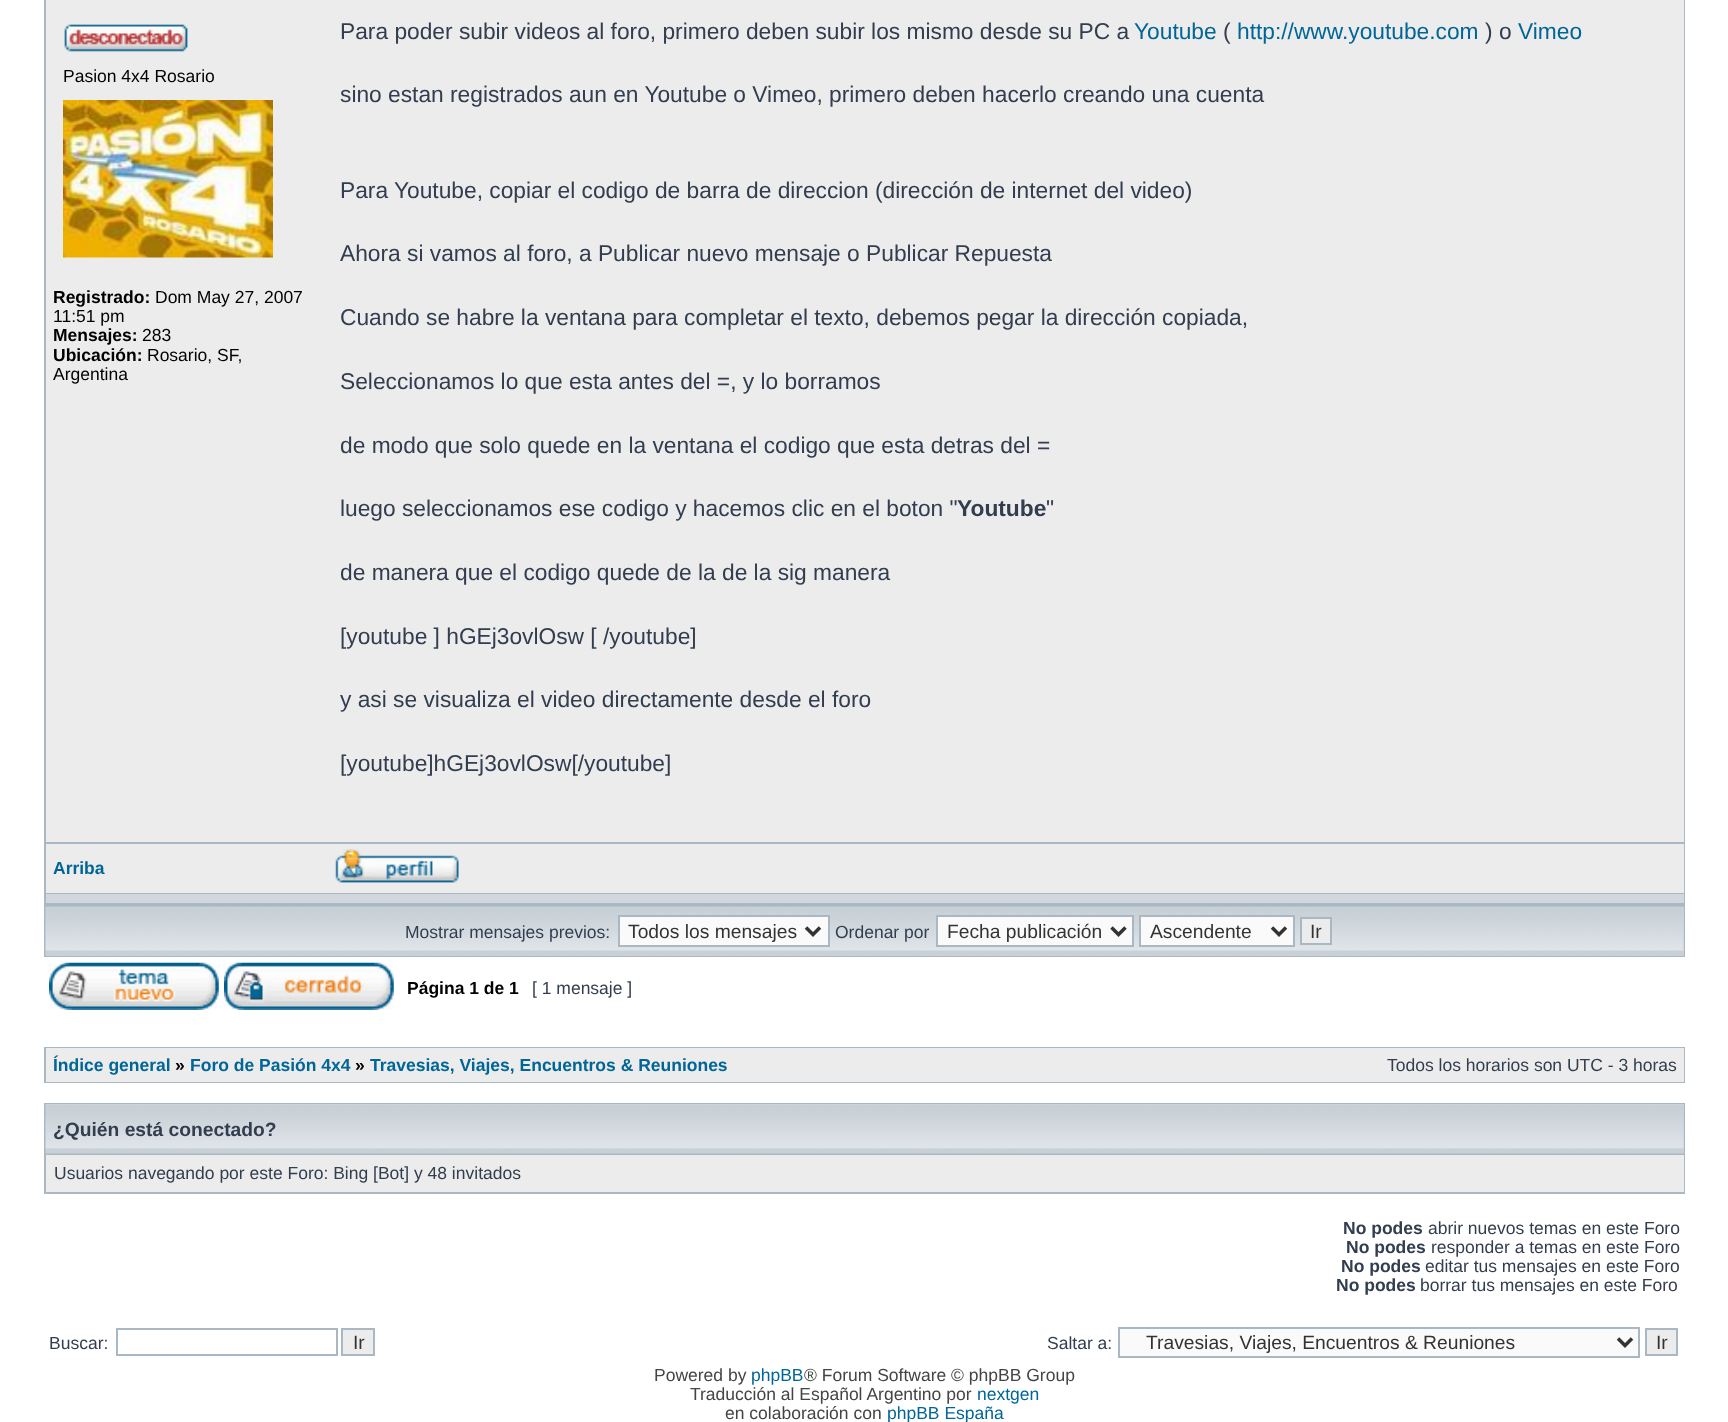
<?xml version="1.0" encoding="UTF-8"?>
<svg xmlns="http://www.w3.org/2000/svg" width="1728" height="1422">
    <rect width="100%" height="100%" fill="#FFFFFF"/>
    <rect x="44" y="0" width="1641" height="957" fill="#A9B8C2"/>
    <rect x="46" y="0" width="1638" height="842" fill="#ECECEC"/>
    <image x="64" y="24" width="124" height="28" href="img_01.png"/>
    <text x="63" y="82" font-family="Liberation Sans" font-size="17.5" fill="#000000">Pasion 4x4 Rosario</text>
    <image x="63" y="100" width="210" height="158" href="img_02.png"/>
    <text x="53" y="303" font-family="Liberation Sans" font-size="17.5" font-weight="700" fill="#000000">Registrado:</text>
    <text x="155" y="303" font-family="Liberation Sans" font-size="17.5" fill="#000000">Dom May 27, 2007</text>
    <text x="53" y="322" font-family="Liberation Sans" font-size="17.5" fill="#000000">11:51 pm</text>
    <text x="53" y="341" font-family="Liberation Sans" font-size="17.5" font-weight="700" fill="#000000">Mensajes:</text>
    <text x="142" y="341" font-family="Liberation Sans" font-size="17.5" fill="#000000">283</text>
    <text x="53" y="361" font-family="Liberation Sans" font-size="17.5" font-weight="700" fill="#000000">Ubicación:</text>
    <text x="147" y="361" font-family="Liberation Sans" font-size="17.5" fill="#000000">Rosario, SF,</text>
    <text x="53" y="380" font-family="Liberation Sans" font-size="17.5" fill="#000000">Argentina</text>
    <text x="340" y="39" font-family="Liberation Sans" font-size="22.75" fill="#323D4F">Para poder subir videos al foro, primero deben subir los mismo desde su PC a</text>
    <text x="1134" y="39" font-family="Liberation Sans" font-size="22.75" fill="#006597">Youtube</text>
    <text x="1223" y="39" font-family="Liberation Sans" font-size="22.75" fill="#323D4F">(</text>
    <text x="1237" y="39" font-family="Liberation Sans" font-size="22.75" fill="#006597">http://www.youtube.com</text>
    <text x="1485" y="39" font-family="Liberation Sans" font-size="22.75" fill="#323D4F">) o</text>
    <text x="1518" y="39" font-family="Liberation Sans" font-size="22.75" fill="#006597">Vimeo</text>
    <text x="340" y="102" font-family="Liberation Sans" font-size="22.75" fill="#323D4F">sino estan registrados aun en Youtube o Vimeo, primero deben hacerlo creando una cuenta</text>
    <text x="340" y="198" font-family="Liberation Sans" font-size="22.75" fill="#323D4F">Para Youtube, copiar el codigo de barra de direccion (dirección de internet del video)</text>
    <text x="340" y="261" font-family="Liberation Sans" font-size="22.75" fill="#323D4F">Ahora si vamos al foro, a Publicar nuevo mensaje o Publicar Repuesta</text>
    <text x="340" y="325" font-family="Liberation Sans" font-size="22.75" fill="#323D4F">Cuando se habre la ventana para completar el texto, debemos pegar la dirección copiada,</text>
    <text x="340" y="389" font-family="Liberation Sans" font-size="22.75" fill="#323D4F">Seleccionamos lo que esta antes del =, y lo borramos</text>
    <text x="340" y="453" font-family="Liberation Sans" font-size="22.75" fill="#323D4F">de modo que solo quede en la ventana el codigo que esta detras del =</text>
    <text x="340" y="516" font-family="Liberation Sans" font-size="22.75" fill="#323D4F">luego seleccionamos ese codigo y hacemos clic en el boton "</text>
    <text x="957" y="516" font-family="Liberation Sans" font-size="22.75" font-weight="700" fill="#323D4F">Youtube</text>
    <text x="1046" y="516" font-family="Liberation Sans" font-size="22.75" fill="#323D4F">"</text>
    <text x="340" y="580" font-family="Liberation Sans" font-size="22.75" fill="#323D4F">de manera que el codigo quede de la de la sig manera</text>
    <text x="340" y="644" font-family="Liberation Sans" font-size="22.75" fill="#323D4F">[youtube ] hGEj3ovlOsw [ /youtube]</text>
    <text x="340" y="707" font-family="Liberation Sans" font-size="22.75" fill="#323D4F">y asi se visualiza el video directamente desde el foro</text>
    <text x="340" y="771" font-family="Liberation Sans" font-size="22.75" fill="#323D4F">[youtube]hGEj3ovlOsw[/youtube]</text>
    <rect x="46" y="844" width="1638" height="49" fill="#ECECEC"/>
    <text x="53" y="874" font-family="Liberation Sans" font-size="17.5" font-weight="700" fill="#006597">Arriba</text>
    <image x="335" y="849" width="124" height="34" href="img_03.png"/>
    <rect x="46" y="894" width="1638" height="9" fill="#D1D7DC"/>
    <rect x="46" y="907" width="1638" height="49" fill="#C7D0D7"/>
    <image x="45" y="906" width="1639" height="50" href="img_04.png"/>
    <text x="405" y="938" font-family="Liberation Sans" font-size="17.5" fill="#323D4F">Mostrar mensajes previos:</text>
    <rect x="619" y="916" width="210" height="30" fill="#FAFAFA" stroke="#A9B8C2" stroke-width="2"/>
    <path d="M 806 927.5 L 813 934.5 L 820 927.5" fill="none" stroke="#333333" stroke-width="3.5"/>
    <text x="628" y="938" font-family="Liberation Sans" font-size="19.25" fill="#333333">Todos los mensajes</text>
    <text x="835" y="938" font-family="Liberation Sans" font-size="17.5" fill="#323D4F">Ordenar por</text>
    <rect x="937" y="916" width="196" height="30" fill="#FAFAFA" stroke="#A9B8C2" stroke-width="2"/>
    <path d="M 1111.5 927.5 L 1118.5 934.5 L 1125.5 927.5" fill="none" stroke="#333333" stroke-width="3.5"/>
    <text x="947" y="938" font-family="Liberation Sans" font-size="19.25" fill="#333333">Fecha publicación</text>
    <rect x="1140" y="916" width="154" height="30" fill="#FAFAFA" stroke="#A9B8C2" stroke-width="2"/>
    <path d="M 1272 927.5 L 1279 934.5 L 1286 927.5" fill="none" stroke="#333333" stroke-width="3.5"/>
    <text x="1150" y="938" font-family="Liberation Sans" font-size="19.25" fill="#333333">Ascendente</text>
    <rect x="1301" y="918" width="30" height="26" fill="#ECECEC" stroke="#A9B8C2" stroke-width="2"/>
    <text x="1310" y="938" font-family="Liberation Sans" font-size="19.25" fill="#333333">Ir</text>
    <image x="49" y="962" width="170" height="48" href="img_05.png"/>
    <image x="224" y="962" width="170" height="48" href="img_06.png"/>
    <text x="407" y="994" font-family="Liberation Sans" font-size="17.5" font-weight="700" fill="#000000">Página 1 de 1</text>
    <text x="532" y="994" font-family="Liberation Sans" font-size="17.5" fill="#323D4F">[ 1 mensaje ]</text>
    <rect x="44" y="1047" width="1641" height="36" fill="#A9B8C2"/>
    <rect x="46" y="1048" width="1638" height="34" fill="#ECECEC"/>
    <text x="53" y="1071" font-family="Liberation Sans" font-size="17.5" font-weight="700" fill="#006597">Índice general</text>
    <text x="175" y="1071" font-family="Liberation Sans" font-size="17.5" font-weight="700" fill="#000000">»</text>
    <text x="190" y="1071" font-family="Liberation Sans" font-size="17.5" font-weight="700" fill="#006597">Foro de Pasión 4x4</text>
    <text x="355" y="1071" font-family="Liberation Sans" font-size="17.5" font-weight="700" fill="#000000">»</text>
    <text x="370" y="1071" font-family="Liberation Sans" font-size="17.5" font-weight="700" fill="#006597">Travesias, Viajes, Encuentros &amp; Reuniones</text>
    <text x="1387" y="1071" font-family="Liberation Sans" font-size="17.5" fill="#323D4F">Todos los horarios son UTC - 3 horas</text>
    <rect x="44" y="1103" width="1641" height="91" fill="#A9B8C2"/>
    <rect x="46" y="1104" width="1638" height="49" fill="#C7D0D7"/>
    <image x="45" y="1104" width="1639" height="50" href="img_07.png"/>
    <text x="53" y="1136" font-family="Liberation Sans" font-size="19.25" font-weight="700" fill="#323D4F">¿Quién está conectado?</text>
    <rect x="46" y="1155" width="1638" height="37" fill="#ECECEC"/>
    <text x="54" y="1179" font-family="Liberation Sans" font-size="17.5" fill="#323D4F">Usuarios navegando por este Foro: Bing [Bot] y 48 invitados</text>
    <text x="1343" y="1234" font-family="Liberation Sans" font-size="17.5" font-weight="700" fill="#323D4F">No podes</text>
    <text x="1428" y="1234" font-family="Liberation Sans" font-size="17.5" fill="#323D4F">abrir nuevos temas en este Foro</text>
    <text x="1346" y="1253" font-family="Liberation Sans" font-size="17.5" font-weight="700" fill="#323D4F">No podes</text>
    <text x="1431" y="1253" font-family="Liberation Sans" font-size="17.5" fill="#323D4F">responder a temas en este Foro</text>
    <text x="1341" y="1272" font-family="Liberation Sans" font-size="17.5" font-weight="700" fill="#323D4F">No podes</text>
    <text x="1425" y="1272" font-family="Liberation Sans" font-size="17.5" fill="#323D4F">editar tus mensajes en este Foro</text>
    <text x="1336" y="1291" font-family="Liberation Sans" font-size="17.5" font-weight="700" fill="#323D4F">No podes</text>
    <text x="1420" y="1291" font-family="Liberation Sans" font-size="17.5" fill="#323D4F">borrar tus mensajes en este Foro</text>
    <text x="49" y="1349" font-family="Liberation Sans" font-size="17.5" fill="#323D4F">Buscar:</text>
    <rect x="117" y="1329" width="220" height="26" fill="none" stroke="#A9B8C2" stroke-width="2"/>
    <rect x="342" y="1329" width="32" height="26" fill="#ECECEC" stroke="#A9B8C2" stroke-width="2"/>
    <text x="353" y="1349" font-family="Liberation Sans" font-size="19.25" fill="#333333">Ir</text>
    <text x="1047" y="1349" font-family="Liberation Sans" font-size="17.5" fill="#323D4F">Saltar a:</text>
    <rect x="1119" y="1328" width="520" height="29" fill="#FAFAFA" stroke="#A9B8C2" stroke-width="2"/>
    <path d="M 1618 1338.5 L 1625 1345.5 L 1632 1338.5" fill="none" stroke="#333333" stroke-width="3.5"/>
    <text x="1146" y="1349" font-family="Liberation Sans" font-size="19.25" fill="#333333">Travesias, Viajes, Encuentros &amp; Reuniones</text>
    <rect x="1646" y="1329" width="31" height="26" fill="#ECECEC" stroke="#A9B8C2" stroke-width="2"/>
    <text x="1656" y="1349" font-family="Liberation Sans" font-size="19.25" fill="#333333">Ir</text>
    <text x="654" y="1381" font-family="Liberation Sans" font-size="17.5" fill="#444444">Powered by</text>
    <text x="751" y="1381" font-family="Liberation Sans" font-size="17.5" fill="#006597">phpBB</text>
    <text x="804" y="1381" font-family="Liberation Sans" font-size="17.5" fill="#444444">® Forum Software © phpBB Group</text>
    <text x="690" y="1400" font-family="Liberation Sans" font-size="17.5" fill="#444444">Traducción al Español Argentino por</text>
    <text x="977" y="1400" font-family="Liberation Sans" font-size="17.5" fill="#006597">nextgen</text>
    <text x="725" y="1419" font-family="Liberation Sans" font-size="17.5" fill="#444444">en colaboración con</text>
    <text x="887" y="1419" font-family="Liberation Sans" font-size="17.5" fill="#006597">phpBB España</text>
</svg>
